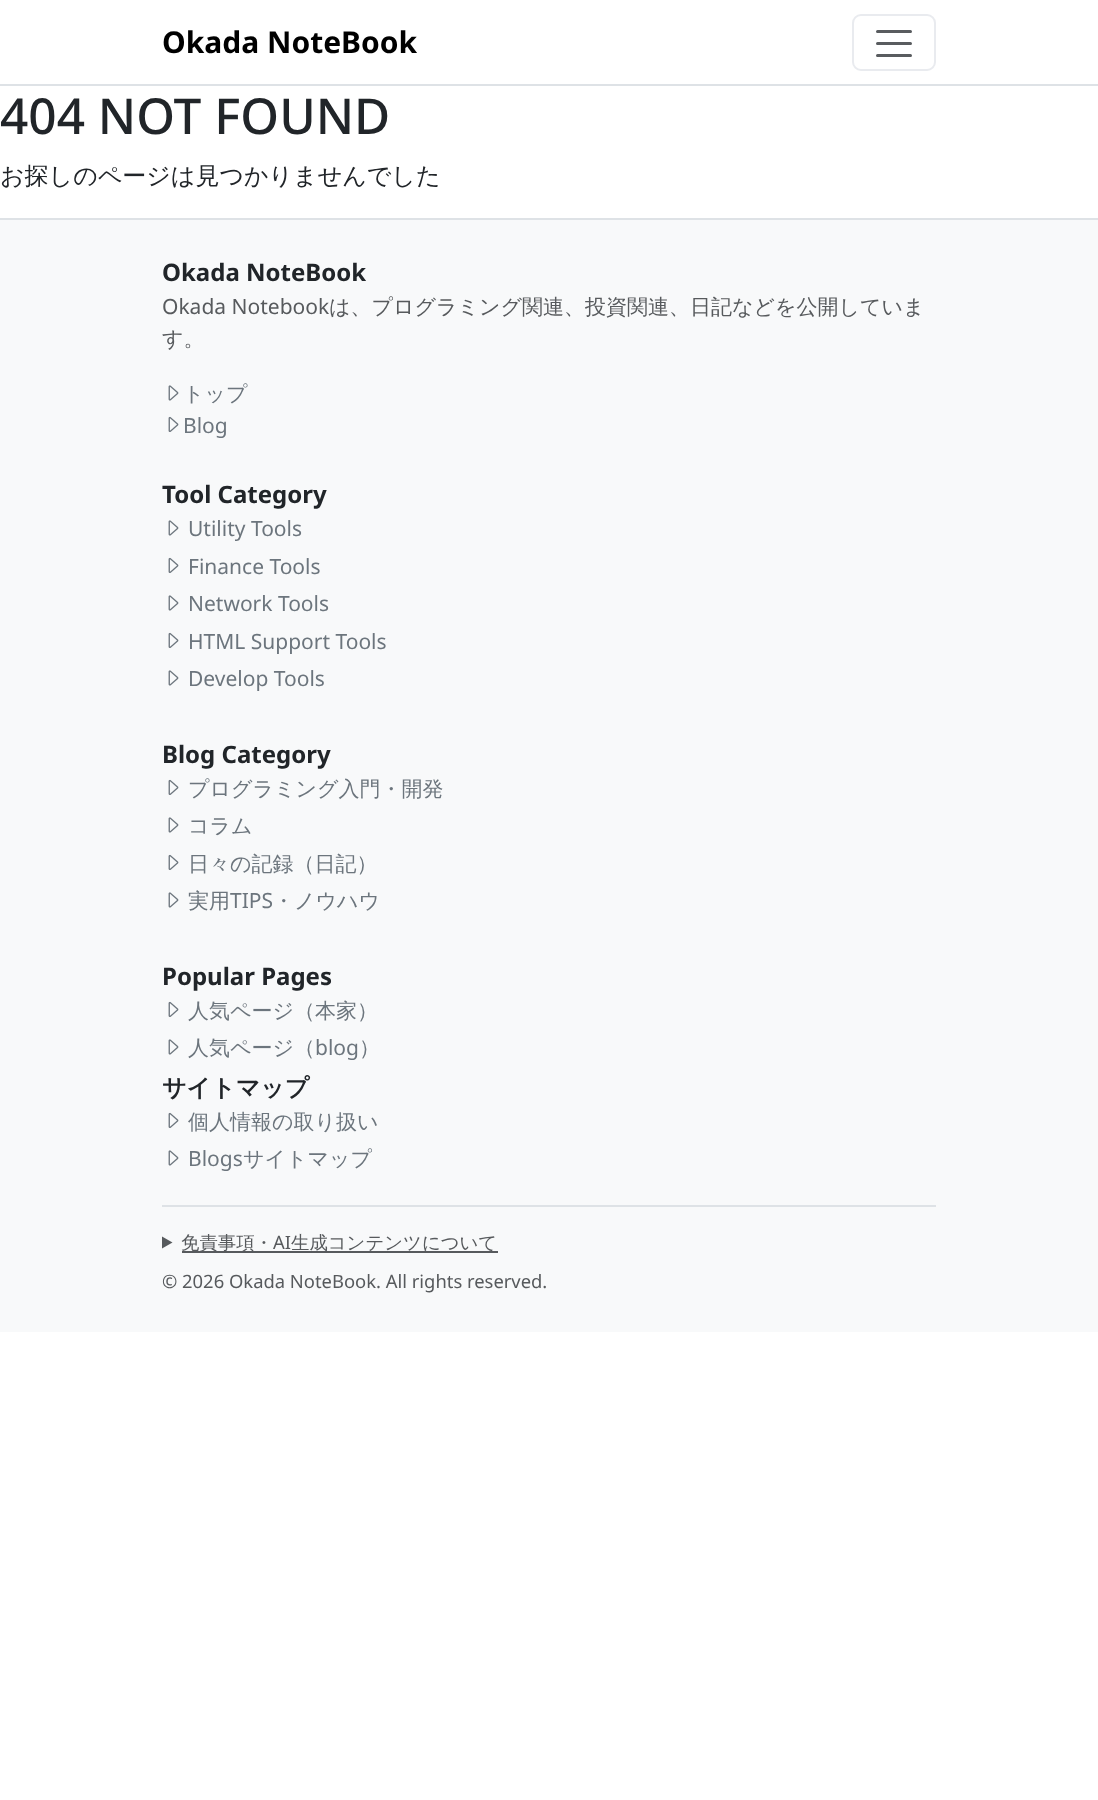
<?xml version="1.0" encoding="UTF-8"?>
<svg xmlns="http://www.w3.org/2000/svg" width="1098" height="1800">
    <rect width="100%" height="100%" fill="#FFFFFF"/>
    <rect x="0" y="84" width="1098" height="2" fill="#DEE2E6"/>
    <text x="162" y="53" font-family="Noto Sans" font-size="30" font-weight="700" fill="#000000">Okada NoteBook</text>
    <rect x="853" y="15" width="82" height="55" rx="8" fill="none" stroke="#E9EBEF" stroke-width="2"/>
    <path d="M 877.5 31.5 H 910.5 M 877.5 43.5 H 910.5 M 877.5 55.5 H 910.5" fill="none" stroke="#595C5F" stroke-width="3" stroke-linecap="round"/>
    <text x="0" y="134" font-family="Noto Sans" font-size="49.5" font-weight="500" fill="#212529">404 NOT FOUND</text>
    <text x="0" y="184" font-family="WenQuanYi Zen Hei" font-size="24" font-weight="500" fill="#212529">お探しのページは見つかりませんでした</text>
    <rect x="0" y="220" width="1098" height="1112" fill="#F8F9FA"/>
    <rect x="0" y="218" width="1098" height="2" fill="#DEE2E6"/>
    <text x="162" y="281" font-family="Noto Sans" font-size="24" font-weight="700" fill="#212529">Okada NoteBook</text>
    <text x="162" y="314" font-family="Noto Sans" font-size="21" fill="#575A5D">Okada Notebook</text>
    <text x="329" y="314" font-family="WenQuanYi Zen Hei" font-size="21" font-weight="500" fill="#575A5D">は、プログラミング関連、投資関連、日記などを公開していま</text>
    <text x="162" y="346" font-family="WenQuanYi Zen Hei" font-size="21" font-weight="500" fill="#575A5D">す。</text>
    <image x="168" y="385" width="11" height="16" href="img_01.png"/>
    <text x="183" y="401" font-family="WenQuanYi Zen Hei" font-size="21" font-weight="500" fill="#6C757D">トップ</text>
    <image x="168" y="416" width="11" height="16" href="img_02.png"/>
    <text x="183" y="433" font-family="Noto Sans" font-size="21" fill="#6C757D">Blog</text>
    <text x="162" y="503" font-family="Noto Sans" font-size="24" font-weight="700" fill="#212529">Tool Category</text>
    <image x="168" y="520" width="11" height="16" href="img_01.png"/>
    <text x="188" y="536" font-family="Noto Sans" font-size="21" fill="#6C757D">Utility Tools</text>
    <image x="168" y="557" width="11" height="16" href="img_02.png"/>
    <text x="188" y="574" font-family="Noto Sans" font-size="21" fill="#6C757D">Finance Tools</text>
    <image x="168" y="595" width="11" height="16" href="img_01.png"/>
    <text x="188" y="611" font-family="Noto Sans" font-size="21" fill="#6C757D">Network Tools</text>
    <image x="168" y="632" width="11" height="16" href="img_02.png"/>
    <text x="188" y="649" font-family="Noto Sans" font-size="21" fill="#6C757D">HTML Support Tools</text>
    <image x="168" y="670" width="11" height="16" href="img_01.png"/>
    <text x="188" y="686" font-family="Noto Sans" font-size="21" fill="#6C757D">Develop Tools</text>
    <text x="162" y="763" font-family="Noto Sans" font-size="24" font-weight="700" fill="#212529">Blog Category</text>
    <image x="168" y="779" width="11" height="16" href="img_02.png"/>
    <text x="188" y="796" font-family="WenQuanYi Zen Hei" font-size="21" font-weight="500" fill="#6C757D">プログラミング入門・開発</text>
    <image x="168" y="817" width="11" height="16" href="img_01.png"/>
    <text x="188" y="833" font-family="WenQuanYi Zen Hei" font-size="21" font-weight="500" fill="#6C757D">コラム</text>
    <image x="168" y="854" width="11" height="16" href="img_02.png"/>
    <text x="188" y="871" font-family="WenQuanYi Zen Hei" font-size="21" font-weight="500" fill="#6C757D">日々の記録（日記）</text>
    <image x="168" y="892" width="11" height="16" href="img_01.png"/>
    <text x="188" y="908" font-family="WenQuanYi Zen Hei" font-size="21" font-weight="500" fill="#6C757D">実用</text>
    <text x="230" y="908" font-family="Noto Sans" font-size="21" fill="#6C757D">TIPS</text>
    <text x="273" y="908" font-family="WenQuanYi Zen Hei" font-size="21" font-weight="500" fill="#6C757D">・ノウハウ</text>
    <text x="162" y="985" font-family="Noto Sans" font-size="24" font-weight="700" fill="#212529">Popular Pages</text>
    <image x="168" y="1001" width="11" height="16" href="img_02.png"/>
    <text x="188" y="1018" font-family="WenQuanYi Zen Hei" font-size="21" font-weight="500" fill="#6C757D">人気ページ（本家）</text>
    <image x="168" y="1039" width="11" height="16" href="img_01.png"/>
    <text x="188" y="1055" font-family="WenQuanYi Zen Hei" font-size="21" font-weight="500" fill="#6C757D">人気ページ（</text>
    <text x="315" y="1055" font-family="Noto Sans" font-size="21" fill="#6C757D">blog</text>
    <text x="359" y="1055" font-family="WenQuanYi Zen Hei" font-size="21" font-weight="500" fill="#6C757D">）</text>
    <text x="162" y="1096" font-family="WenQuanYi Zen Hei" font-size="24" font-weight="700" fill="#212529">サイトマップ</text>
    <image x="168" y="1112" width="11" height="16" href="img_02.png"/>
    <text x="188" y="1129" font-family="WenQuanYi Zen Hei" font-size="21" font-weight="500" fill="#6C757D">個人情報の取り扱い</text>
    <image x="168" y="1150" width="11" height="16" href="img_01.png"/>
    <text x="188" y="1166" font-family="Noto Sans" font-size="21" fill="#6C757D">Blogs</text>
    <text x="243" y="1166" font-family="WenQuanYi Zen Hei" font-size="21" font-weight="500" fill="#6C757D">サイトマップ</text>
    <rect x="162" y="1205" width="774" height="2" fill="#DEE2E6"/>
    <path d="M 162 1236.5 L 172.5 1242.5 L 162 1248.5 Z" fill="#575A5D"/>
    <rect x="182" y="1251" width="316" height="2" fill="#575A5D"/>
    <text x="181" y="1249" font-family="WenQuanYi Zen Hei" font-size="18.4" font-weight="500" fill="#575A5D">免責事項・</text>
    <text x="273" y="1249" font-family="Noto Sans" font-size="18.4" fill="#575A5D">AI</text>
    <text x="291" y="1249" font-family="WenQuanYi Zen Hei" font-size="18.4" font-weight="500" fill="#575A5D">生成コンテンツについて</text>
    <text x="162" y="1288" font-family="Noto Sans" font-size="18.4" fill="#575A5D">© 2026 Okada NoteBook. All rights reserved.</text>
</svg>
